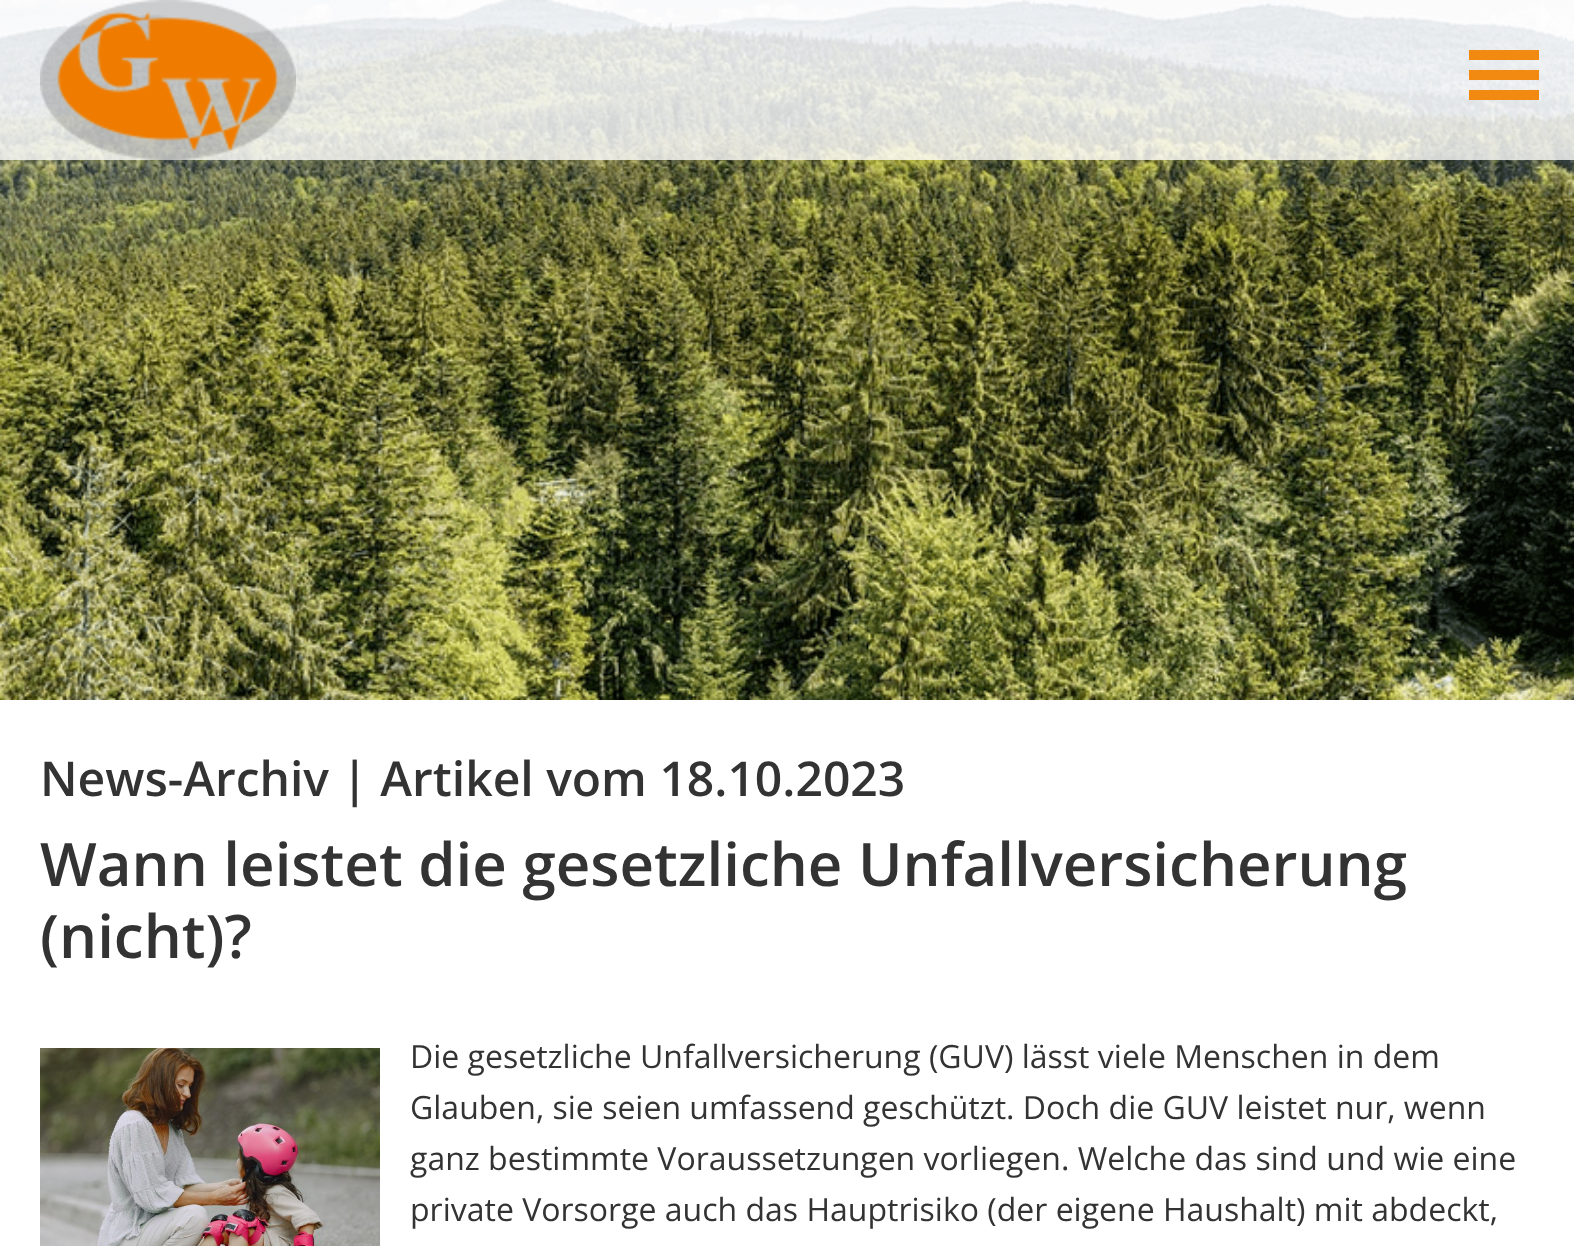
<?xml version="1.0" encoding="UTF-8"?>
<svg xmlns="http://www.w3.org/2000/svg" width="1574" height="1246">
    <rect width="100%" height="100%" fill="#FFFFFF"/>
    <image x="0" y="0" width="1574" height="700" href="img_01.png"/>
    <rect x="0" y="0" width="1574" height="160" fill="#FFFFFF" fill-opacity="0.8"/>
    <image x="40" y="0" width="256" height="160" href="img_02.png"/>
    <path d="M 1469 50 H 1539 V 60 H 1469 Z M 1469 70 H 1539 V 80 H 1469 Z M 1469 90 H 1539 V 100 H 1469 Z" fill="#F28911"/>
    <text x="40" y="796" font-family="Open Sans" font-size="48" font-weight="600" fill="#333333">News-Archiv | Artikel vom 18.10.2023</text>
    <text font-family="Open Sans" font-size="60" font-weight="600" fill="#333333">
        <tspan x="40" y="886">Wann leistet die gesetzliche Unfallversicherung</tspan>
        <tspan x="40" y="958">(nicht)?</tspan>
    </text>
    <image x="40" y="1048" width="340" height="198" href="img_03.png"/>
    <text font-family="Open Sans" font-size="32" fill="#333333">
        <tspan x="410" y="1068">Die gesetzliche Unfallversicherung (GUV) lässt viele Menschen in dem</tspan>
        <tspan x="410" y="1119">Glauben, sie seien umfassend geschützt. Doch die GUV leistet nur, wenn</tspan>
        <tspan x="410" y="1170">ganz bestimmte Voraussetzungen vorliegen. Welche das sind und wie eine</tspan>
        <tspan x="410" y="1221">private Vorsorge auch das Hauptrisiko (der eigene Haushalt) mit abdeckt,</tspan>
    </text>
</svg>
